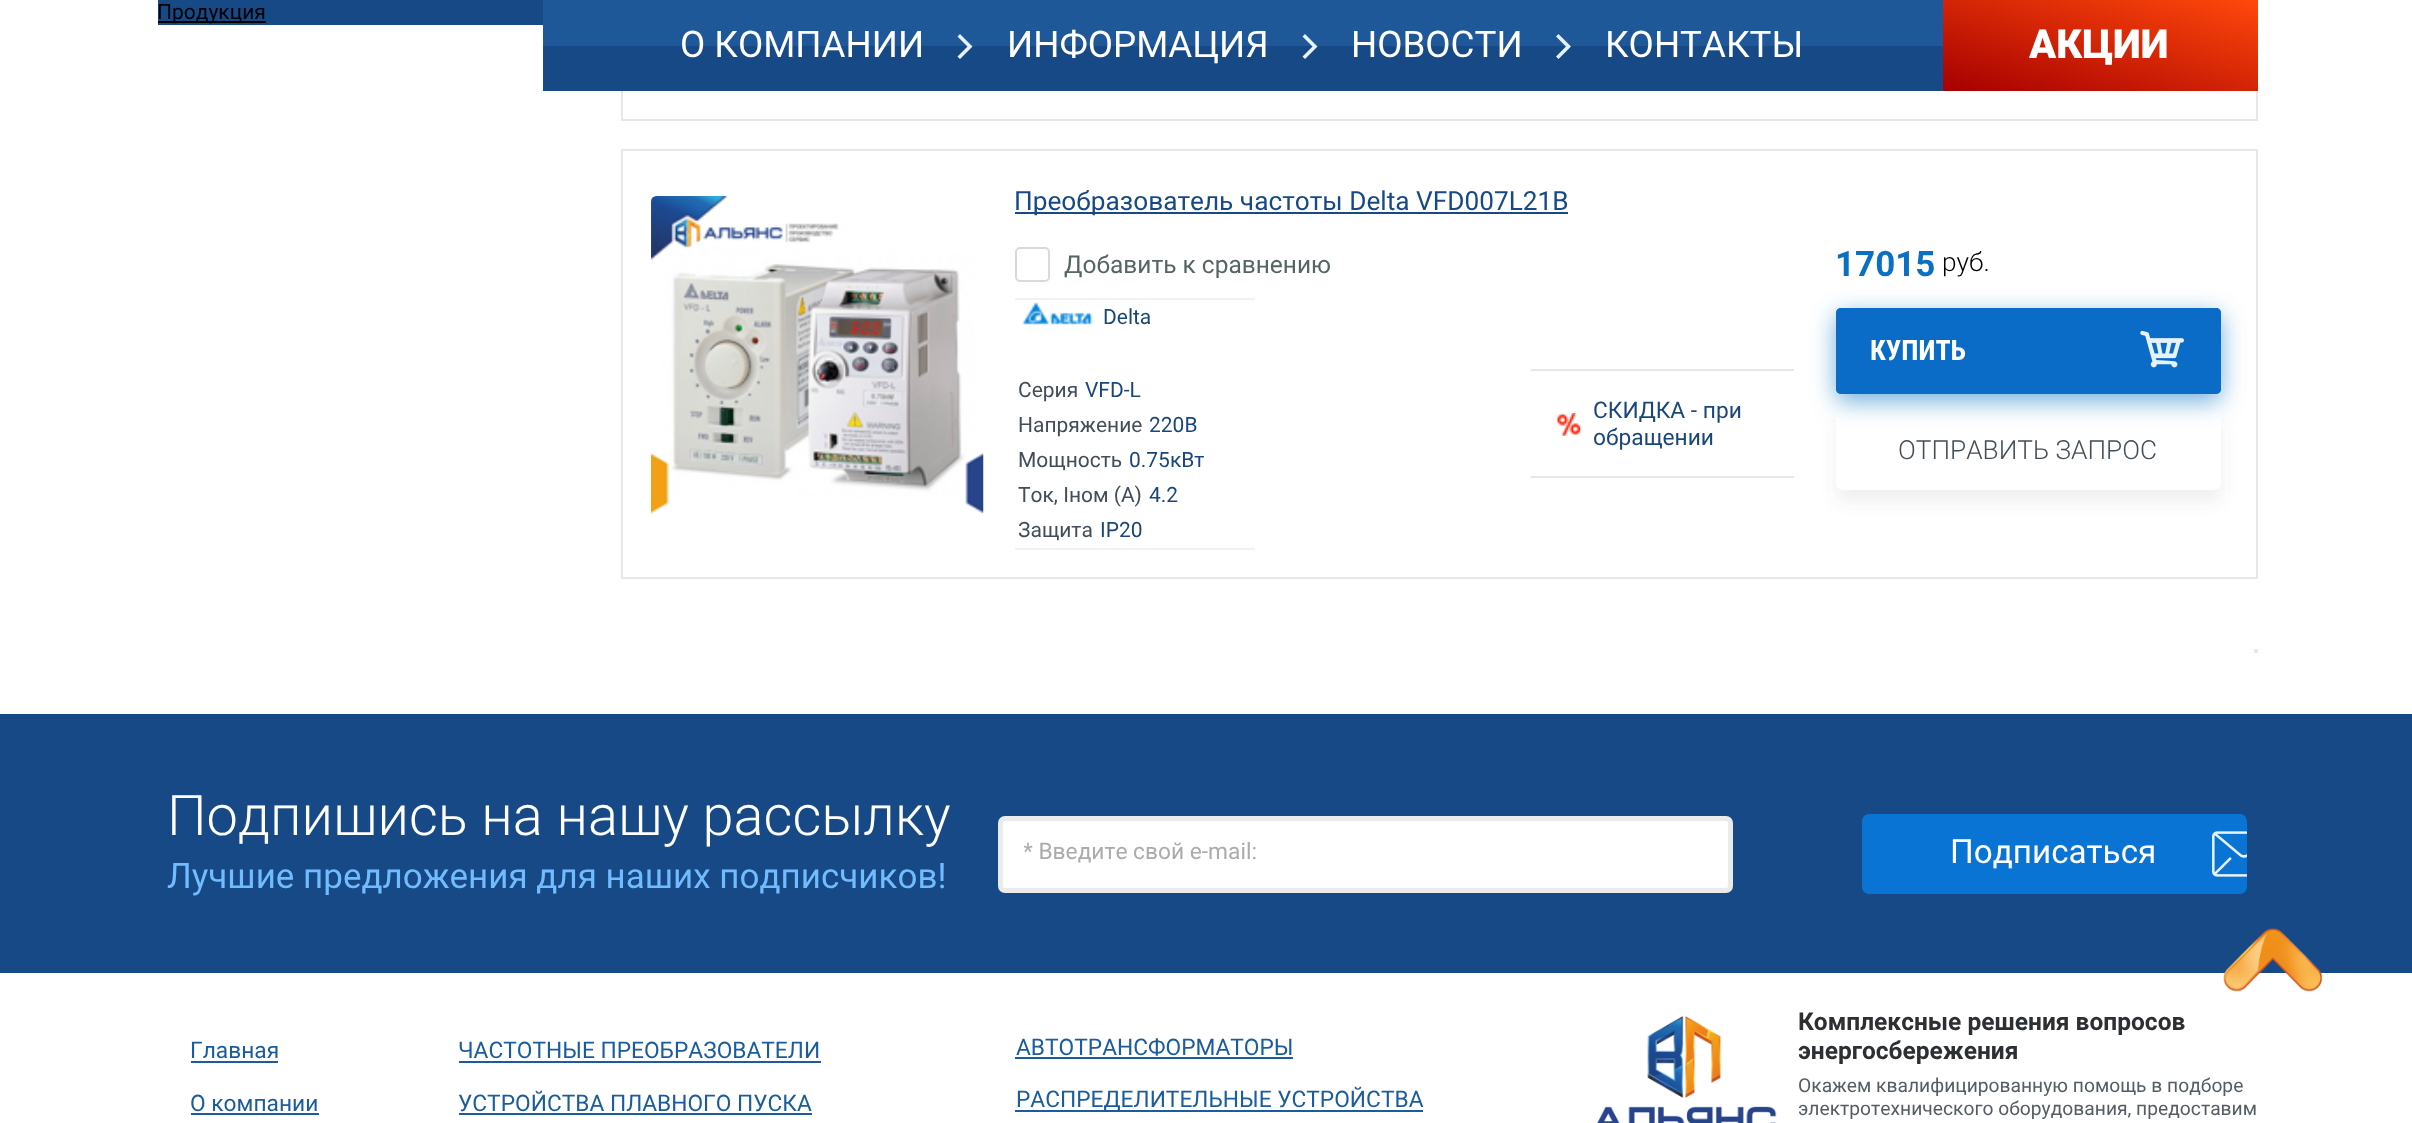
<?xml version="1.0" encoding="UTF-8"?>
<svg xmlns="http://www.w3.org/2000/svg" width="2412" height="1123">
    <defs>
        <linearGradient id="g1" gradientUnits="userSpaceOnUse" x1="2076" y1="129" x2="2124" y2="-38"><stop offset="0" stop-color="#A60000"/><stop offset="1" stop-color="#FF480C"/></linearGradient>
        <filter id="blur1" x="-50%" y="-200%" width="200%" height="500%"><feGaussianBlur stdDeviation="8"/></filter>
        <filter id="blur2" x="-50%" y="-200%" width="200%" height="500%"><feGaussianBlur stdDeviation="12"/></filter>
        <clipPath id="clip1"><rect x="1024" y="838" width="702" height="27"/></clipPath>
    </defs>
    <rect width="100%" height="100%" fill="#FFFFFF"/>
    <rect x="622" y="-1" width="1635" height="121" fill="none" stroke="#E7E7E7" stroke-width="2"/>
    <rect x="621" y="0" width="1637" height="91" fill="#FFFFFF"/>
    <rect x="158" y="0" width="385" height="25" fill="#164986"/>
    <rect x="158" y="21" width="108" height="2" fill="#000000"/>
    <text x="157" y="19" font-family="Roboto" font-size="21" fill="#000000">Продукция</text>
    <rect x="543" y="46" width="1400" height="45" fill="#174986"/>
    <rect x="543" y="0" width="1400" height="46" fill="#1F5899"/>
    <text x="680" y="57" font-family="Roboto" font-size="36.75" fill="#FFFFFF">О КОМПАНИИ</text>
    <path d="M 957.5 36.5 L 960 34 L 972.5 46.5 L 960 59 L 957.5 56.5 L 967.5 46.5 Z" fill="#E7F2FF"/>
    <text x="1007" y="57" font-family="Roboto" font-size="36.75" fill="#FFFFFF">ИНФОРМАЦИЯ</text>
    <path d="M 1302.5 36.5 L 1305 34 L 1317.5 46.5 L 1305 59 L 1302.5 56.5 L 1312.5 46.5 Z" fill="#E7F2FF"/>
    <text x="1351" y="57" font-family="Roboto" font-size="36.75" fill="#FFFFFF">НОВОСТИ</text>
    <path d="M 1556 36.5 L 1558.5 34 L 1571 46.5 L 1558.5 59 L 1556 56.5 L 1566 46.5 Z" fill="#E7F2FF"/>
    <text x="1605" y="57" font-family="Roboto" font-size="36.75" fill="#FFFFFF">КОНТАКТЫ</text>
    <rect x="1943" y="0" width="315" height="91" fill="url(#g1)"/>
    <text x="2029" y="58" font-family="Roboto" font-size="40" font-weight="900" fill="#FFFFFF">АКЦИИ</text>
    <rect x="622" y="150" width="1635" height="428" fill="none" stroke="#E7E7E7" stroke-width="2"/>
    <image x="651" y="196" width="333" height="318" href="img_01.png"/>
    <rect x="1015" y="212" width="553" height="2" fill="#164986"/>
    <text x="1014" y="210" font-family="Roboto" font-size="26.25" fill="#164986">Преобразователь частоты Delta VFD007L21B</text>
    <rect x="1016" y="248" width="33" height="33" rx="4" fill="none" stroke="#D9D9D9" stroke-width="2"/>
    <text x="1064" y="273" font-family="Roboto" font-size="24.5" fill="#566464">Добавить к сравнению</text>
    <rect x="1015" y="298" width="240" height="2" fill="#F1F1F1"/>
    <image x="1022" y="302" width="71" height="24" href="img_02.png"/>
    <text x="1103" y="324" font-family="Roboto" font-size="21" fill="#19477B">Delta</text>
    <text x="1018" y="397" font-family="Roboto" font-size="21" fill="#434D59">Серия</text>
    <text x="1085" y="397" font-family="Roboto" font-size="21" fill="#19477B">VFD-L</text>
    <text x="1018" y="432" font-family="Roboto" font-size="21" fill="#434D59">Напряжение</text>
    <text x="1149" y="432" font-family="Roboto" font-size="21" fill="#19477B">220В</text>
    <text x="1018" y="467" font-family="Roboto" font-size="21" fill="#434D59">Мощность</text>
    <text x="1129" y="467" font-family="Roboto" font-size="21" fill="#19477B">0.75кВт</text>
    <text x="1018" y="502" font-family="Roboto" font-size="21" fill="#434D59">Ток, Iном (А)</text>
    <text x="1149" y="502" font-family="Roboto" font-size="21" fill="#19477B">4.2</text>
    <rect x="1015" y="548" width="240" height="2" fill="#F1F1F1"/>
    <text x="1018" y="537" font-family="Roboto" font-size="21" fill="#434D59">Защита</text>
    <text x="1100" y="537" font-family="Roboto" font-size="21" fill="#19477B">IP20</text>
    <rect x="1531" y="369" width="263" height="2" fill="#E7E7E7"/>
    <rect x="1531" y="476" width="263" height="2" fill="#E7E7E7"/>
    <image x="1557" y="413" width="24" height="23" href="img_03.png"/>
    <text font-family="Roboto" font-size="22.75" fill="#19477B">
        <tspan x="1593" y="418">СКИДКА - при</tspan>
        <tspan x="1593" y="445">обращении</tspan>
    </text>
    <text x="1835" y="276" font-family="Roboto" font-size="35" font-weight="700" fill="#0970C2">17015</text>
    <text x="1942" y="271" font-family="Roboto" font-size="26.25" font-weight="300" fill="#000000">руб.</text>
    <rect x="1837" y="309" width="383" height="84" rx="4" fill="none" stroke="#076CC6" stroke-width="2"/>
    <rect x="1836" y="422" width="385" height="79" rx="7" fill="#636566" fill-opacity="0.1" filter="url(#blur1)"/>
    <rect x="1836" y="411" width="385" height="79" rx="7" fill="#FFFFFF"/>
    <rect x="1836" y="315" width="385" height="86" rx="5" fill="#0970C2" fill-opacity="0.57" filter="url(#blur2)"/>
    <rect x="1836" y="308" width="385" height="86" rx="5" fill="#0A6CC6"/>
    <image x="2140" y="330" width="44" height="38" href="img_04.png"/>
    <text x="1870" y="360" font-family="Roboto Condensed" font-size="28" font-weight="700" fill="#FFFFFF">КУПИТЬ</text>
    <text x="1898" y="459" font-family="Roboto" font-size="26.25" font-weight="300" fill="#434D59">ОТПРАВИТЬ ЗАПРОС</text>
    <rect x="2254" y="649" width="4" height="4" fill="#E6E9E9"/>
    <rect x="0" y="714" width="2412" height="259" fill="#164986"/>
    <text x="167" y="835" font-family="Roboto" font-size="56" font-weight="300" fill="#FFFFFF">Подпишись на нашу рассылку</text>
    <rect x="998" y="816" width="735" height="77" rx="7" fill="#FFFFFF"/>
    <rect x="1000.5" y="818.5" width="730" height="72" rx="4.5" fill="none" stroke="#000000" stroke-opacity="0.08" stroke-width="5"/>
    <g clip-path="url(#clip1)">
        <text x="1023" y="859" font-family="Roboto" font-size="22.75" fill="#ABABAB">* Введите свой e-mail:</text>
    </g>
    <rect x="1862" y="814" width="385" height="80" rx="7" fill="#0A74D4"/>
    <image x="2212" y="831" width="35" height="46" href="img_05.png"/>
    <text x="1950" y="863" font-family="Roboto" font-size="33.25" fill="#FFFFFF">Подписаться</text>
    <text x="167" y="888" font-family="Roboto" font-size="35" fill="#70BCFF">Лучшие предложения для наших подписчиков!</text>
    <text x="190" y="1058" font-family="Roboto" font-size="22.75" fill="#1A5C9D">Главная</text>
    <rect x="191" y="1061" width="87" height="2" fill="#1A5C9D"/>
    <text x="190" y="1111" font-family="Roboto" font-size="22.75" fill="#1A5C9D">О компании</text>
    <rect x="191" y="1113" width="128" height="2" fill="#1A5C9D"/>
    <text x="458" y="1058" font-family="Roboto" font-size="22.75" fill="#1A5C9D">ЧАСТОТНЫЕ ПРЕОБРАЗОВАТЕЛИ</text>
    <rect x="459" y="1061" width="362" height="2" fill="#1A5C9D"/>
    <text x="1016" y="1055" font-family="Roboto" font-size="22.75" fill="#1A5C9D">АВТОТРАНСФОРМАТОРЫ</text>
    <rect x="1015" y="1057" width="278" height="2" fill="#1A5C9D"/>
    <text x="458" y="1111" font-family="Roboto" font-size="22.75" fill="#1A5C9D">УСТРОЙСТВА ПЛАВНОГО ПУСКА</text>
    <rect x="459" y="1113" width="353" height="2" fill="#1A5C9D"/>
    <rect x="1015" y="1110" width="408" height="2" fill="#1A5C9D"/>
    <text x="1016" y="1107" font-family="Roboto" font-size="22.75" fill="#1A5C9D">РАСПРЕДЕЛИТЕЛЬНЫЕ УСТРОЙСТВА</text>
    <image x="1597" y="1016" width="180" height="107" href="img_06.png"/>
    <text font-family="Roboto" font-size="24.5" font-weight="700" fill="#2D3033">
        <tspan x="1798" y="1030">Комплексные решения вопросов</tspan>
        <tspan x="1798" y="1059">энергосбережения</tspan>
    </text>
    <text font-family="Roboto" font-size="19.25" fill="#545D63">
        <tspan x="1798" y="1092">Окажем квалифицированную помощь в подборе</tspan>
        <tspan x="1798" y="1115">электротехнического оборудования, предоставим</tspan>
    </text>
    <image x="2223" y="928" width="100" height="64" href="img_07.png"/>
</svg>
